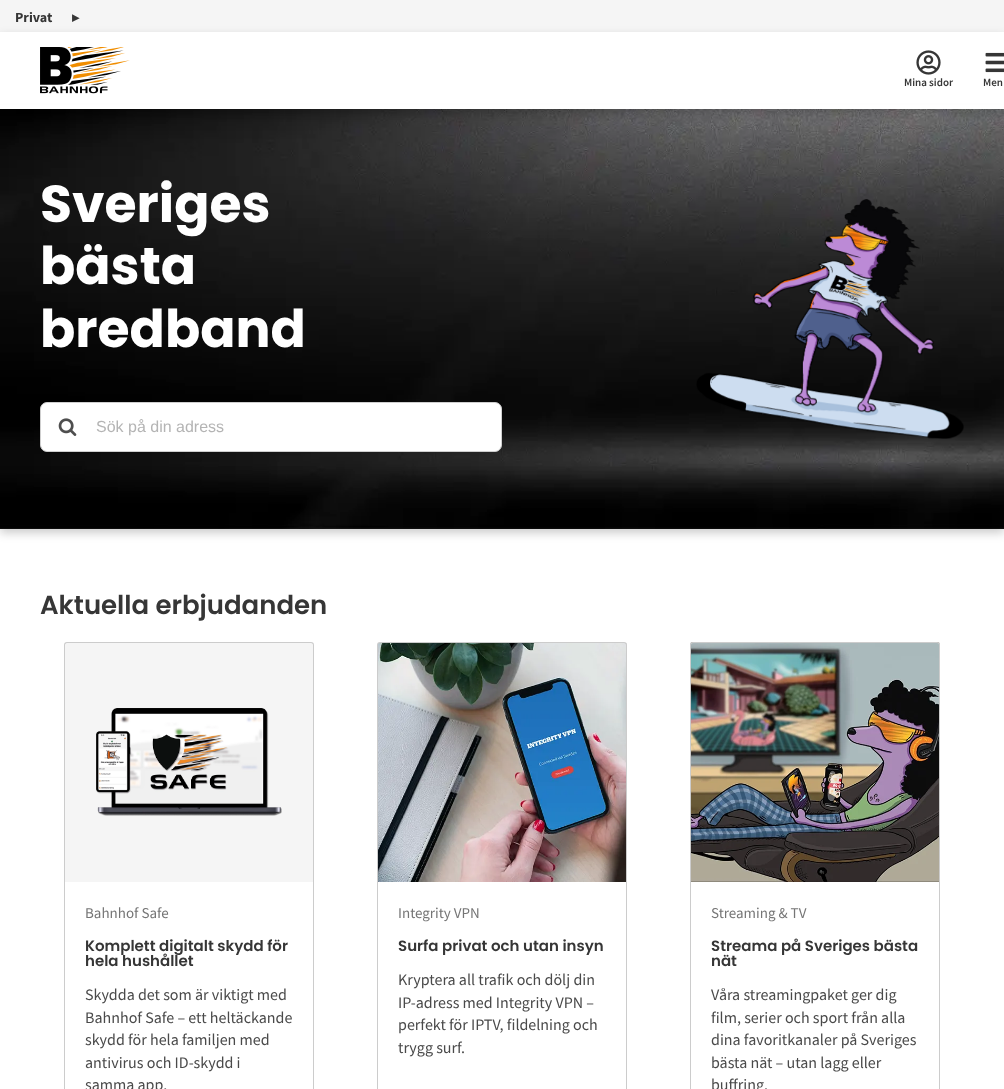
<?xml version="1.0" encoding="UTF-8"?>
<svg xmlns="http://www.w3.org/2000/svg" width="1004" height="1089">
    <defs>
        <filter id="blur1" x="-50%" y="-200%" width="200%" height="500%"><feGaussianBlur stdDeviation="5"/></filter>
        <clipPath id="clip1"><path d="M 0 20 H 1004 V 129 H 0 Z M 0 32 H 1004 V 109 H 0 Z" clip-rule="evenodd"/></clipPath>
    </defs>
    <rect width="100%" height="100%" fill="#FFFFFF"/>
    <rect x="0" y="113" width="1004" height="420" fill="#000000" fill-opacity="0.2" filter="url(#blur1)"/>
    <rect x="0" y="105" width="1004" height="4" fill="#FFFFFF"/>
    <rect x="0" y="0" width="1004" height="32" fill="#F5F5F5"/>
    <text x="15" y="22" font-family="Source Sans Pro" font-size="14" font-weight="700" fill="#363636">Privat</text>
    <text x="72" y="22" font-family="DejaVu Sans" font-size="14" font-weight="700" fill="#363636">▸</text>
    <image x="0" y="109" width="1004" height="420" href="img_04.png"/>
    <g clip-path="url(#clip1)">
        <rect x="0" y="36" width="1004" height="77" fill="#000000" fill-opacity="0.2" filter="url(#blur1)"/>
    </g>
    <image x="40" y="47" width="90" height="47" href="img_01.png"/>
    <image x="916" y="50" width="25" height="25" href="img_02.png"/>
    <text x="904" y="86" font-family="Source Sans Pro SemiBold" font-size="11" font-weight="600" fill="#363636">Mina sidor</text>
    <image x="985" y="52" width="19" height="21" href="img_03.png"/>
    <text x="983" y="86" font-family="Source Sans Pro SemiBold" font-size="11" font-weight="600" fill="#363636">Men</text>
    <text font-family="Poppins" font-size="52" font-weight="700" fill="#FFFFFF">
        <tspan x="40" y="222">Sveriges</tspan>
        <tspan x="40" y="284">bästa</tspan>
        <tspan x="40" y="347">bredband</tspan>
    </text>
    <rect x="40.5" y="402.5" width="461" height="49" rx="6.5" fill="#FFFFFF" stroke="#CFCFCF"/>
    <image x="58" y="418" width="19" height="18" href="img_05.png"/>
    <text x="96" y="432" font-family="Liberation Sans" font-size="16" fill="#B4B4B4">Sök på din adress</text>
    <image x="696" y="199" width="268" height="240" href="img_06.png"/>
    <text x="40" y="614" font-family="Poppins" font-size="26" font-weight="600" fill="#363636">Aktuella erbjudanden</text>
    <path d="M 67 643 H 311 C 312 643 313 644 313 645 V 882 H 65 V 645 C 65 644 66 643 67 643 Z" fill="#F5F5F5"/>
    <image x="96" y="708" width="186" height="108" href="img_07.png"/>
    <path d="M 67 642 H 311 C 313 642 314 643 314 645 V 882 H 64 V 645 C 64 643 65 642 67 642 Z M 67 643 H 311 C 312 643 313 644 313 645 V 882 H 65 V 645 C 65 644 66 643 67 643 Z" fill="#CCCCCC" fill-rule="evenodd"/>
    <path d="M 64 882 H 314 V 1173 C 314 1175 313 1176 311 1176 H 67 C 65 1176 64 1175 64 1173 Z M 65 882 H 313 V 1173 C 313 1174 312 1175 311 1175 H 67 C 66 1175 65 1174 65 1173 Z" fill="#CCCCCC" fill-rule="evenodd"/>
    <text x="85" y="918" font-family="Source Sans Pro" font-size="15" fill="#757575">Bahnhof Safe</text>
    <text font-family="Poppins" font-size="15" font-weight="600" fill="#363636">
        <tspan x="85" y="951">Komplett digitalt skydd för</tspan>
        <tspan x="85" y="966">hela hushållet</tspan>
    </text>
    <text font-family="Source Sans Pro" font-size="16" fill="#4A4A4A">
        <tspan x="85" y="1000">Skydda det som är viktigt med</tspan>
        <tspan x="85" y="1023">Bahnhof Safe – ett heltäckande</tspan>
        <tspan x="85" y="1045">skydd för hela familjen med</tspan>
        <tspan x="85" y="1068">antivirus och ID-skydd i</tspan>
        <tspan x="85" y="1090">samma app.</tspan>
    </text>
    <image x="378" y="643" width="249" height="239" href="img_08.png"/>
    <path d="M 380 642 H 624 C 626 642 627 643 627 645 V 882 H 377 V 645 C 377 643 378 642 380 642 Z M 380 643 H 624 C 625 643 626 644 626 645 V 882 H 378 V 645 C 378 644 379 643 380 643 Z" fill="#CCCCCC" fill-rule="evenodd"/>
    <path d="M 377 882 H 627 V 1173 C 627 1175 626 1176 624 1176 H 380 C 378 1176 377 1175 377 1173 Z M 378 882 H 626 V 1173 C 626 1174 625 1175 624 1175 H 380 C 379 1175 378 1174 378 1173 Z" fill="#CCCCCC" fill-rule="evenodd"/>
    <text x="398" y="918" font-family="Source Sans Pro" font-size="15" fill="#757575">Integrity VPN</text>
    <text x="398" y="951" font-family="Poppins" font-size="15" font-weight="600" fill="#363636">Surfa privat och utan insyn</text>
    <text font-family="Source Sans Pro" font-size="16" fill="#4A4A4A">
        <tspan x="398" y="985">Kryptera all trafik och dölj din</tspan>
        <tspan x="398" y="1008">IP-adress med Integrity VPN –</tspan>
        <tspan x="398" y="1030">perfekt för IPTV, fildelning och</tspan>
        <tspan x="398" y="1053">trygg surf.</tspan>
    </text>
    <image x="690" y="642" width="250" height="240" href="img_09.png"/>
    <path d="M 693 642 H 937 C 939 642 940 643 940 645 V 882 H 690 V 645 C 690 643 691 642 693 642 Z M 693 643 H 937 C 938 643 939 644 939 645 V 882 H 691 V 645 C 691 644 692 643 693 643 Z" fill="#CCCCCC" fill-rule="evenodd"/>
    <path d="M 690 882 H 940 V 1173 C 940 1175 939 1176 937 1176 H 693 C 691 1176 690 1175 690 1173 Z M 691 882 H 939 V 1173 C 939 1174 938 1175 937 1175 H 693 C 692 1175 691 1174 691 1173 Z" fill="#CCCCCC" fill-rule="evenodd"/>
    <text x="711" y="918" font-family="Source Sans Pro" font-size="15" fill="#757575">Streaming &amp; TV</text>
    <text font-family="Poppins" font-size="15" font-weight="600" fill="#363636">
        <tspan x="711" y="951">Streama på Sveriges bästa</tspan>
        <tspan x="711" y="966">nät</tspan>
    </text>
    <text font-family="Source Sans Pro" font-size="16" fill="#4A4A4A">
        <tspan x="711" y="1000">Våra streamingpaket ger dig</tspan>
        <tspan x="711" y="1023">film, serier och sport från alla</tspan>
        <tspan x="711" y="1045">dina favoritkanaler på Sveriges</tspan>
        <tspan x="711" y="1068">bästa nät – utan lagg eller</tspan>
        <tspan x="711" y="1090">buffring.</tspan>
    </text>
</svg>
